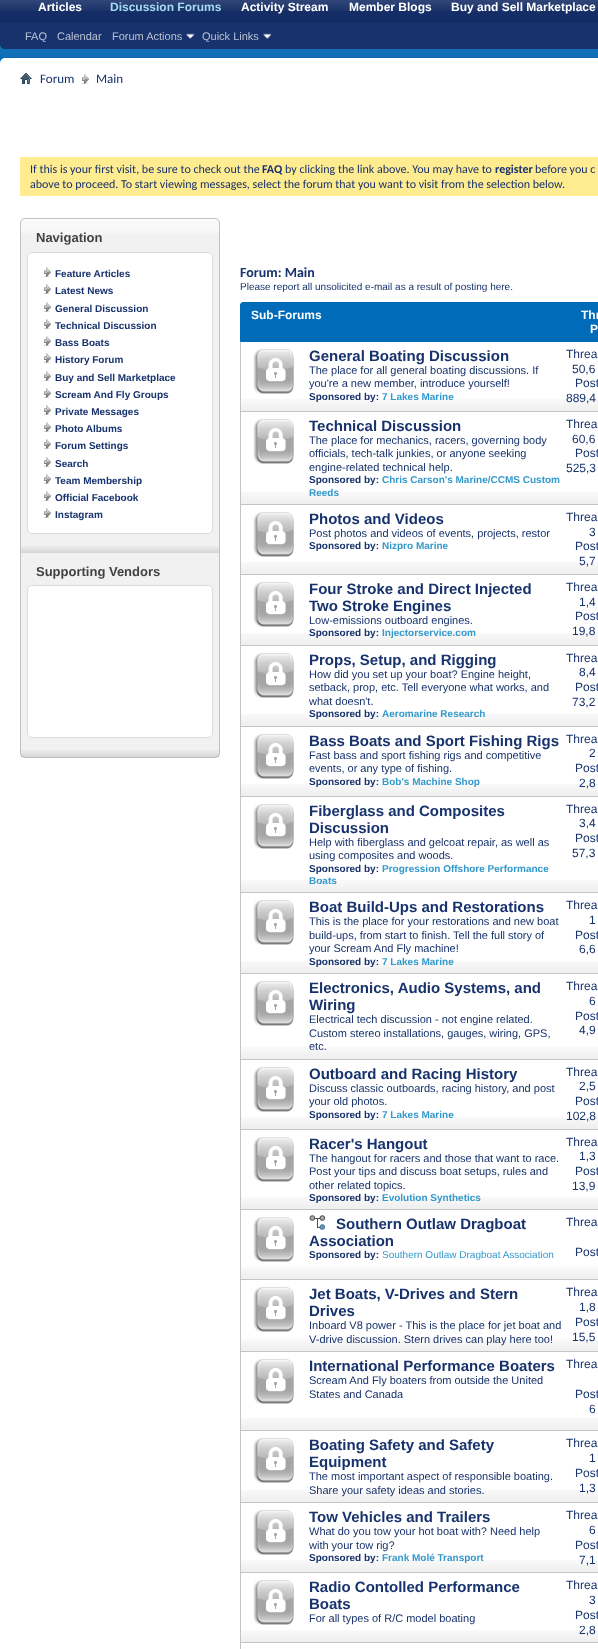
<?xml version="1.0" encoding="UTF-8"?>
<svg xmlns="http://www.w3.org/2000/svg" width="598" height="1649">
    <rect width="100%" height="100%" fill="#006BB9"/>
    <image x="0" y="44" width="598" height="14" href="img_01.png"/>
    <path d="M 0 -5 H 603 V 44 C 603 47 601 49 598 49 H 5 C 2 49 0 47 0 44 Z" fill="#17326C"/>
    <rect x="0" y="0" width="598" height="23" fill="#152D66"/>
    <image x="0" y="0" width="231" height="11" href="img_02.png"/>
    <rect x="20" y="0" width="80" height="11" fill="#152D66"/>
    <image x="20" y="0" width="80" height="11" href="img_03.png"/>
    <text x="38" y="11" font-family="Liberation Sans" font-size="12" font-weight="700" fill="#FFFFFF">Articles</text>
    <text x="110" y="11" font-family="Liberation Sans" font-size="12" font-weight="700" fill="#A4DBF2">Discussion Forums</text>
    <image x="231" y="0" width="108" height="11" href="img_04.png"/>
    <text x="241" y="11" font-family="Liberation Sans" font-size="12" font-weight="700" fill="#FFFFFF">Activity Stream</text>
    <image x="339" y="0" width="102" height="11" href="img_05.png"/>
    <text x="349" y="11" font-family="Liberation Sans" font-size="12" font-weight="700" fill="#FFFFFF">Member Blogs</text>
    <image x="441" y="0" width="157" height="11" href="img_06.png"/>
    <text x="451" y="11" font-family="Liberation Sans" font-size="12" font-weight="700" fill="#FFFFFF">Buy and Sell Marketplace</text>
    <text x="25" y="40" font-family="Liberation Sans" font-size="11" fill="#B9C2D3">FAQ</text>
    <text x="57" y="40" font-family="Liberation Sans" font-size="11" fill="#B9C2D3">Calendar</text>
    <text x="112" y="40" font-family="Liberation Sans" font-size="11" fill="#B9C2D3">Forum Actions</text>
    <image x="186" y="33" width="9" height="6" href="img_07.png"/>
    <text x="202" y="40" font-family="Liberation Sans" font-size="11" fill="#B9C2D3">Quick Links</text>
    <image x="263" y="33" width="9" height="6" href="img_07.png"/>
    <rect x="0" y="58" width="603" height="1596" rx="5" fill="#FFFFFF"/>
    <image x="20" y="73" width="12" height="11" href="img_08.png"/>
    <image x="82" y="74" width="7" height="10" href="img_09.png"/>
    <text x="40" y="83" font-family="Carlito" font-size="13" fill="#17326C">Forum</text>
    <text x="96" y="83" font-family="Carlito" font-size="13" fill="#17326C">Main</text>
    <rect x="20" y="157" width="578" height="39" fill="#FFEB90"/>
    <text x="30" y="173" font-family="Carlito" font-size="12" fill="#17326C">If this is your first visit, be sure to check out the</text>
    <text x="262" y="173" font-family="Carlito" font-size="12" font-weight="700" fill="#17326C">FAQ</text>
    <text x="285" y="173" font-family="Carlito" font-size="12" fill="#17326C">by clicking the link above. You may have to</text>
    <text x="495" y="173" font-family="Carlito" font-size="12" font-weight="700" fill="#17326C">register</text>
    <text x="535" y="173" font-family="Carlito" font-size="12" fill="#17326C">before you c</text>
    <text x="30" y="188" font-family="Carlito" font-size="12" fill="#17326C">above to proceed. To start viewing messages, select the forum that you want to visit from the selection below.</text>
    <rect x="20" y="218" width="200" height="540" rx="5" fill="#F1F1F1"/>
    <image x="20" y="219" width="200" height="15" href="img_10.png"/>
    <rect x="20.5" y="218.5" width="199" height="539" rx="4.5" fill="none" stroke="#C1C1C1"/>
    <text x="36" y="242" font-family="Liberation Sans" font-size="13" font-weight="700" fill="#424242">Navigation</text>
    <rect x="27.5" y="252.5" width="185" height="281" rx="4.5" fill="#FFFFFF" stroke="#DADADA"/>
    <rect x="28" y="253" width="184" height="280" rx="5" fill="#FFFFFF"/>
    <rect x="209" y="253" width="1" height="1" fill="#FFFFFF"/>
    <image x="44" y="267" width="7" height="10" href="img_09.png"/>
    <text x="55" y="277" font-family="Liberation Sans" font-size="10" font-weight="700" fill="#17326C">Feature Articles</text>
    <image x="44" y="284" width="7" height="10" href="img_09.png"/>
    <text x="55" y="294" font-family="Liberation Sans" font-size="10" font-weight="700" fill="#17326C">Latest News</text>
    <image x="44" y="302" width="7" height="10" href="img_09.png"/>
    <text x="55" y="312" font-family="Liberation Sans" font-size="10" font-weight="700" fill="#17326C">General Discussion</text>
    <image x="44" y="319" width="7" height="10" href="img_09.png"/>
    <text x="55" y="329" font-family="Liberation Sans" font-size="10" font-weight="700" fill="#17326C">Technical Discussion</text>
    <image x="44" y="336" width="7" height="10" href="img_09.png"/>
    <text x="55" y="346" font-family="Liberation Sans" font-size="10" font-weight="700" fill="#17326C">Bass Boats</text>
    <image x="44" y="353" width="7" height="10" href="img_09.png"/>
    <text x="55" y="363" font-family="Liberation Sans" font-size="10" font-weight="700" fill="#17326C">History Forum</text>
    <image x="44" y="371" width="7" height="10" href="img_09.png"/>
    <text x="55" y="381" font-family="Liberation Sans" font-size="10" font-weight="700" fill="#17326C">Buy and Sell Marketplace</text>
    <image x="44" y="388" width="7" height="10" href="img_09.png"/>
    <text x="55" y="398" font-family="Liberation Sans" font-size="10" font-weight="700" fill="#17326C">Scream And Fly Groups</text>
    <image x="44" y="405" width="7" height="10" href="img_09.png"/>
    <text x="55" y="415" font-family="Liberation Sans" font-size="10" font-weight="700" fill="#17326C">Private Messages</text>
    <image x="44" y="422" width="7" height="10" href="img_09.png"/>
    <text x="55" y="432" font-family="Liberation Sans" font-size="10" font-weight="700" fill="#17326C">Photo Albums</text>
    <image x="44" y="439" width="7" height="10" href="img_09.png"/>
    <text x="55" y="449" font-family="Liberation Sans" font-size="10" font-weight="700" fill="#17326C">Forum Settings</text>
    <image x="44" y="457" width="7" height="10" href="img_09.png"/>
    <text x="55" y="467" font-family="Liberation Sans" font-size="10" font-weight="700" fill="#17326C">Search</text>
    <image x="44" y="474" width="7" height="10" href="img_09.png"/>
    <text x="55" y="484" font-family="Liberation Sans" font-size="10" font-weight="700" fill="#17326C">Team Membership</text>
    <image x="44" y="491" width="7" height="10" href="img_09.png"/>
    <text x="55" y="501" font-family="Liberation Sans" font-size="10" font-weight="700" fill="#17326C">Official Facebook</text>
    <image x="44" y="508" width="7" height="10" href="img_09.png"/>
    <text x="55" y="518" font-family="Liberation Sans" font-size="10" font-weight="700" fill="#17326C">Instagram</text>
    <image x="21" y="546" width="198" height="7" href="img_11.png"/>
    <text x="36" y="576" font-family="Liberation Sans" font-size="13" font-weight="700" fill="#424242">Supporting Vendors</text>
    <rect x="27.5" y="585.5" width="185" height="152" rx="4.5" fill="#FFFFFF" stroke="#DADADA"/>
    <rect x="28" y="586" width="184" height="151" rx="5" fill="#FFFFFF"/>
    <rect x="209" y="586" width="1" height="1" fill="#FFFFFF"/>
    <image x="21" y="750" width="198" height="7" href="img_12.png"/>
    <text x="240" y="277" font-family="Carlito" font-size="14" font-weight="700" fill="#17326C">Forum: Main</text>
    <text x="240" y="290" font-family="Liberation Sans" font-size="10" fill="#17326C">Please report all unsolicited e-mail as a result of posting here.</text>
    <path d="M 243 302.5 H 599 C 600.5 302.5 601.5 303.5 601.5 305 V 341.5 H 240.5 V 305 C 240.5 303.5 241.5 302.5 243 302.5 Z" fill="#006BB9" stroke="#006BB9"/>
    <text x="251" y="319" font-family="Liberation Sans" font-size="12" font-weight="700" fill="#FFFFFF">Sub-Forums</text>
    <text x="581" y="319" font-family="Liberation Sans" font-size="12" font-weight="700" fill="#FFFFFF">Thr</text>
    <text x="590" y="333" font-family="Liberation Sans" font-size="12" font-weight="700" fill="#FFFFFF">P</text>
    <image x="241" y="399" width="357" height="12" href="img_13.png"/>
    <rect x="240" y="411" width="358" height="1" fill="#C4C4C4"/>
    <rect x="240" y="342" width="1" height="70" fill="#C4C4C4"/>
    <image x="253" y="349" width="41" height="45" href="img_14.png"/>
    <text x="309" y="361" font-family="Liberation Sans" font-size="15" font-weight="700" fill="#17326C">General Boating Discussion</text>
    <text font-family="Liberation Sans" font-size="11" fill="#17326C">
        <tspan x="309" y="374">The place for all general boating discussions. If</tspan>
        <tspan x="309" y="387">you're a new member, introduce yourself!</tspan>
    </text>
    <text x="309" y="400" font-family="Liberation Sans" font-size="10" font-weight="700" fill="#17326C">Sponsored by:</text>
    <text x="382" y="400" font-family="Liberation Sans" font-size="10" font-weight="700" fill="#3399CC">7 Lakes Marine</text>
    <text x="566" y="358" font-family="Liberation Sans" font-size="12" fill="#17326C">Threa</text>
    <text x="572" y="373" font-family="Liberation Sans" font-size="12" fill="#17326C">50,6</text>
    <text x="575" y="387" font-family="Liberation Sans" font-size="12" fill="#17326C">Post</text>
    <text x="566" y="402" font-family="Liberation Sans" font-size="12" fill="#17326C">889,4</text>
    <image x="241" y="492" width="357" height="12" href="img_13.png"/>
    <rect x="240" y="504" width="358" height="1" fill="#C4C4C4"/>
    <rect x="240" y="412" width="1" height="93" fill="#C4C4C4"/>
    <image x="253" y="419" width="41" height="45" href="img_14.png"/>
    <text x="309" y="431" font-family="Liberation Sans" font-size="15" font-weight="700" fill="#17326C">Technical Discussion</text>
    <text font-family="Liberation Sans" font-size="11" fill="#17326C">
        <tspan x="309" y="444">The place for mechanics, racers, governing body</tspan>
        <tspan x="309" y="457">officials, tech-talk junkies, or anyone seeking</tspan>
        <tspan x="309" y="471">engine-related technical help.</tspan>
    </text>
    <text x="309" y="483" font-family="Liberation Sans" font-size="10" font-weight="700" fill="#17326C">Sponsored by:</text>
    <text x="382" y="483" font-family="Liberation Sans" font-size="10" font-weight="700" fill="#3399CC">Chris Carson's Marine/CCMS Custom</text>
    <text x="309" y="496" font-family="Liberation Sans" font-size="10" font-weight="700" fill="#3399CC">Reeds</text>
    <text x="566" y="428" font-family="Liberation Sans" font-size="12" fill="#17326C">Threa</text>
    <text x="572" y="443" font-family="Liberation Sans" font-size="12" fill="#17326C">60,6</text>
    <text x="575" y="457" font-family="Liberation Sans" font-size="12" fill="#17326C">Post</text>
    <text x="566" y="472" font-family="Liberation Sans" font-size="12" fill="#17326C">525,3</text>
    <image x="241" y="562" width="357" height="12" href="img_13.png"/>
    <rect x="240" y="574" width="358" height="1" fill="#C4C4C4"/>
    <rect x="240" y="505" width="1" height="70" fill="#C4C4C4"/>
    <image x="253" y="512" width="41" height="45" href="img_14.png"/>
    <text x="309" y="524" font-family="Liberation Sans" font-size="15" font-weight="700" fill="#17326C">Photos and Videos</text>
    <text x="309" y="537" font-family="Liberation Sans" font-size="11" fill="#17326C">Post photos and videos of events, projects, restor</text>
    <text x="309" y="549" font-family="Liberation Sans" font-size="10" font-weight="700" fill="#17326C">Sponsored by:</text>
    <text x="382" y="549" font-family="Liberation Sans" font-size="10" font-weight="700" fill="#3399CC">Nizpro Marine</text>
    <text x="566" y="521" font-family="Liberation Sans" font-size="12" fill="#17326C">Threa</text>
    <text x="589" y="536" font-family="Liberation Sans" font-size="12" fill="#17326C">3</text>
    <text x="575" y="550" font-family="Liberation Sans" font-size="12" fill="#17326C">Post</text>
    <text x="579" y="565" font-family="Liberation Sans" font-size="12" fill="#17326C">5,7</text>
    <image x="241" y="633" width="357" height="12" href="img_13.png"/>
    <rect x="240" y="645" width="358" height="1" fill="#C4C4C4"/>
    <rect x="240" y="575" width="1" height="71" fill="#C4C4C4"/>
    <image x="253" y="582" width="41" height="45" href="img_14.png"/>
    <text font-family="Liberation Sans" font-size="15" font-weight="700" fill="#17326C">
        <tspan x="309" y="594">Four Stroke and Direct Injected</tspan>
        <tspan x="309" y="611">Two Stroke Engines</tspan>
    </text>
    <text x="309" y="624" font-family="Liberation Sans" font-size="11" fill="#17326C">Low-emissions outboard engines.</text>
    <text x="309" y="636" font-family="Liberation Sans" font-size="10" font-weight="700" fill="#17326C">Sponsored by:</text>
    <text x="382" y="636" font-family="Liberation Sans" font-size="10" font-weight="700" fill="#3399CC">Injectorservice.com</text>
    <text x="566" y="591" font-family="Liberation Sans" font-size="12" fill="#17326C">Threa</text>
    <text x="579" y="606" font-family="Liberation Sans" font-size="12" fill="#17326C">1,4</text>
    <text x="575" y="620" font-family="Liberation Sans" font-size="12" fill="#17326C">Post</text>
    <text x="572" y="635" font-family="Liberation Sans" font-size="12" fill="#17326C">19,8</text>
    <image x="241" y="714" width="357" height="12" href="img_13.png"/>
    <rect x="240" y="726" width="358" height="1" fill="#C4C4C4"/>
    <rect x="240" y="646" width="1" height="81" fill="#C4C4C4"/>
    <image x="253" y="653" width="41" height="45" href="img_14.png"/>
    <text x="309" y="665" font-family="Liberation Sans" font-size="15" font-weight="700" fill="#17326C">Props, Setup, and Rigging</text>
    <text font-family="Liberation Sans" font-size="11" fill="#17326C">
        <tspan x="309" y="678">How did you set up your boat? Engine height,</tspan>
        <tspan x="309" y="691">setback, prop, etc. Tell everyone what works, and</tspan>
        <tspan x="309" y="705">what doesn't.</tspan>
    </text>
    <text x="309" y="717" font-family="Liberation Sans" font-size="10" font-weight="700" fill="#17326C">Sponsored by:</text>
    <text x="382" y="717" font-family="Liberation Sans" font-size="10" font-weight="700" fill="#3399CC">Aeromarine Research</text>
    <text x="566" y="662" font-family="Liberation Sans" font-size="12" fill="#17326C">Threa</text>
    <text x="579" y="676" font-family="Liberation Sans" font-size="12" fill="#17326C">8,4</text>
    <text x="575" y="691" font-family="Liberation Sans" font-size="12" fill="#17326C">Post</text>
    <text x="572" y="706" font-family="Liberation Sans" font-size="12" fill="#17326C">73,2</text>
    <image x="241" y="784" width="357" height="12" href="img_13.png"/>
    <rect x="240" y="796" width="358" height="1" fill="#C4C4C4"/>
    <rect x="240" y="727" width="1" height="70" fill="#C4C4C4"/>
    <image x="253" y="734" width="41" height="45" href="img_14.png"/>
    <text x="309" y="746" font-family="Liberation Sans" font-size="15" font-weight="700" fill="#17326C">Bass Boats and Sport Fishing Rigs</text>
    <text font-family="Liberation Sans" font-size="11" fill="#17326C">
        <tspan x="309" y="759">Fast bass and sport fishing rigs and competitive</tspan>
        <tspan x="309" y="772">events, or any type of fishing.</tspan>
    </text>
    <text x="309" y="785" font-family="Liberation Sans" font-size="10" font-weight="700" fill="#17326C">Sponsored by:</text>
    <text x="382" y="785" font-family="Liberation Sans" font-size="10" font-weight="700" fill="#3399CC">Bob's Machine Shop</text>
    <text x="566" y="743" font-family="Liberation Sans" font-size="12" fill="#17326C">Threa</text>
    <text x="589" y="757" font-family="Liberation Sans" font-size="12" fill="#17326C">2</text>
    <text x="575" y="772" font-family="Liberation Sans" font-size="12" fill="#17326C">Post</text>
    <text x="579" y="787" font-family="Liberation Sans" font-size="12" fill="#17326C">2,8</text>
    <image x="241" y="880" width="357" height="12" href="img_13.png"/>
    <rect x="240" y="892" width="358" height="1" fill="#C4C4C4"/>
    <rect x="240" y="797" width="1" height="96" fill="#C4C4C4"/>
    <image x="253" y="804" width="41" height="45" href="img_14.png"/>
    <text font-family="Liberation Sans" font-size="15" font-weight="700" fill="#17326C">
        <tspan x="309" y="816">Fiberglass and Composites</tspan>
        <tspan x="309" y="833">Discussion</tspan>
    </text>
    <text font-family="Liberation Sans" font-size="11" fill="#17326C">
        <tspan x="309" y="846">Help with fiberglass and gelcoat repair, as well as</tspan>
        <tspan x="309" y="859">using composites and woods.</tspan>
    </text>
    <text x="309" y="872" font-family="Liberation Sans" font-size="10" font-weight="700" fill="#17326C">Sponsored by:</text>
    <text x="382" y="872" font-family="Liberation Sans" font-size="10" font-weight="700" fill="#3399CC">Progression Offshore Performance</text>
    <text x="309" y="884" font-family="Liberation Sans" font-size="10" font-weight="700" fill="#3399CC">Boats</text>
    <text x="566" y="813" font-family="Liberation Sans" font-size="12" fill="#17326C">Threa</text>
    <text x="579" y="827" font-family="Liberation Sans" font-size="12" fill="#17326C">3,4</text>
    <text x="575" y="842" font-family="Liberation Sans" font-size="12" fill="#17326C">Post</text>
    <text x="572" y="857" font-family="Liberation Sans" font-size="12" fill="#17326C">57,3</text>
    <image x="241" y="961" width="357" height="12" href="img_13.png"/>
    <rect x="240" y="973" width="358" height="1" fill="#C4C4C4"/>
    <rect x="240" y="893" width="1" height="81" fill="#C4C4C4"/>
    <image x="253" y="900" width="41" height="45" href="img_14.png"/>
    <text x="309" y="912" font-family="Liberation Sans" font-size="15" font-weight="700" fill="#17326C">Boat Build-Ups and Restorations</text>
    <text font-family="Liberation Sans" font-size="11" fill="#17326C">
        <tspan x="309" y="925">This is the place for your restorations and new boat</tspan>
        <tspan x="309" y="939">build-ups, from start to finish. Tell the full story of</tspan>
        <tspan x="309" y="952">your Scream And Fly machine!</tspan>
    </text>
    <text x="309" y="965" font-family="Liberation Sans" font-size="10" font-weight="700" fill="#17326C">Sponsored by:</text>
    <text x="382" y="965" font-family="Liberation Sans" font-size="10" font-weight="700" fill="#3399CC">7 Lakes Marine</text>
    <text x="566" y="909" font-family="Liberation Sans" font-size="12" fill="#17326C">Threa</text>
    <text x="589" y="924" font-family="Liberation Sans" font-size="12" fill="#17326C">1</text>
    <text x="575" y="939" font-family="Liberation Sans" font-size="12" fill="#17326C">Post</text>
    <text x="579" y="953" font-family="Liberation Sans" font-size="12" fill="#17326C">6,6</text>
    <image x="241" y="1047" width="357" height="12" href="img_13.png"/>
    <rect x="240" y="1059" width="358" height="1" fill="#C4C4C4"/>
    <rect x="240" y="974" width="1" height="86" fill="#C4C4C4"/>
    <image x="253" y="981" width="41" height="45" href="img_14.png"/>
    <text font-family="Liberation Sans" font-size="15" font-weight="700" fill="#17326C">
        <tspan x="309" y="993">Electronics, Audio Systems, and</tspan>
        <tspan x="309" y="1010">Wiring</tspan>
    </text>
    <text font-family="Liberation Sans" font-size="11" fill="#17326C">
        <tspan x="309" y="1023">Electrical tech discussion - not engine related.</tspan>
        <tspan x="309" y="1037">Custom stereo installations, gauges, wiring, GPS,</tspan>
        <tspan x="309" y="1050">etc.</tspan>
    </text>
    <text x="566" y="990" font-family="Liberation Sans" font-size="12" fill="#17326C">Threa</text>
    <text x="589" y="1005" font-family="Liberation Sans" font-size="12" fill="#17326C">6</text>
    <text x="575" y="1020" font-family="Liberation Sans" font-size="12" fill="#17326C">Post</text>
    <text x="579" y="1034" font-family="Liberation Sans" font-size="12" fill="#17326C">4,9</text>
    <image x="241" y="1117" width="357" height="12" href="img_13.png"/>
    <rect x="240" y="1129" width="358" height="1" fill="#C4C4C4"/>
    <rect x="240" y="1060" width="1" height="70" fill="#C4C4C4"/>
    <image x="253" y="1067" width="41" height="45" href="img_14.png"/>
    <text x="309" y="1079" font-family="Liberation Sans" font-size="15" font-weight="700" fill="#17326C">Outboard and Racing History</text>
    <text font-family="Liberation Sans" font-size="11" fill="#17326C">
        <tspan x="309" y="1092">Discuss classic outboards, racing history, and post</tspan>
        <tspan x="309" y="1105">your old photos.</tspan>
    </text>
    <text x="309" y="1118" font-family="Liberation Sans" font-size="10" font-weight="700" fill="#17326C">Sponsored by:</text>
    <text x="382" y="1118" font-family="Liberation Sans" font-size="10" font-weight="700" fill="#3399CC">7 Lakes Marine</text>
    <text x="566" y="1076" font-family="Liberation Sans" font-size="12" fill="#17326C">Threa</text>
    <text x="579" y="1090" font-family="Liberation Sans" font-size="12" fill="#17326C">2,5</text>
    <text x="575" y="1105" font-family="Liberation Sans" font-size="12" fill="#17326C">Post</text>
    <text x="566" y="1120" font-family="Liberation Sans" font-size="12" fill="#17326C">102,8</text>
    <image x="241" y="1197" width="357" height="12" href="img_13.png"/>
    <rect x="240" y="1209" width="358" height="1" fill="#C4C4C4"/>
    <rect x="240" y="1130" width="1" height="80" fill="#C4C4C4"/>
    <image x="253" y="1137" width="41" height="45" href="img_14.png"/>
    <text x="309" y="1149" font-family="Liberation Sans" font-size="15" font-weight="700" fill="#17326C">Racer's Hangout</text>
    <text font-family="Liberation Sans" font-size="11" fill="#17326C">
        <tspan x="309" y="1162">The hangout for racers and those that want to race.</tspan>
        <tspan x="309" y="1175">Post your tips and discuss boat setups, rules and</tspan>
        <tspan x="309" y="1189">other related topics.</tspan>
    </text>
    <text x="309" y="1201" font-family="Liberation Sans" font-size="10" font-weight="700" fill="#17326C">Sponsored by:</text>
    <text x="382" y="1201" font-family="Liberation Sans" font-size="10" font-weight="700" fill="#3399CC">Evolution Synthetics</text>
    <text x="566" y="1146" font-family="Liberation Sans" font-size="12" fill="#17326C">Threa</text>
    <text x="579" y="1160" font-family="Liberation Sans" font-size="12" fill="#17326C">1,3</text>
    <text x="575" y="1175" font-family="Liberation Sans" font-size="12" fill="#17326C">Post</text>
    <text x="572" y="1190" font-family="Liberation Sans" font-size="12" fill="#17326C">13,9</text>
    <image x="241" y="1267" width="357" height="12" href="img_13.png"/>
    <rect x="240" y="1279" width="358" height="1" fill="#C4C4C4"/>
    <rect x="240" y="1210" width="1" height="70" fill="#C4C4C4"/>
    <image x="253" y="1217" width="41" height="45" href="img_14.png"/>
    <image x="309" y="1215" width="16" height="15" href="img_15.png"/>
    <text x="336" y="1229" font-family="Liberation Sans" font-size="15" font-weight="700" fill="#17326C">Southern Outlaw Dragboat</text>
    <text x="309" y="1246" font-family="Liberation Sans" font-size="15" font-weight="700" fill="#17326C">Association</text>
    <text x="309" y="1258" font-family="Liberation Sans" font-size="10" font-weight="700" fill="#17326C">Sponsored by:</text>
    <text x="382" y="1258" font-family="Liberation Sans" font-size="10" fill="#3399CC">Southern Outlaw Dragboat Association</text>
    <text x="566" y="1226" font-family="Liberation Sans" font-size="12" fill="#17326C">Threa</text>
    <text x="575" y="1256" font-family="Liberation Sans" font-size="12" fill="#17326C">Post</text>
    <image x="241" y="1339" width="357" height="12" href="img_13.png"/>
    <rect x="240" y="1351" width="358" height="1" fill="#C4C4C4"/>
    <rect x="240" y="1280" width="1" height="72" fill="#C4C4C4"/>
    <image x="253" y="1287" width="41" height="45" href="img_14.png"/>
    <text font-family="Liberation Sans" font-size="15" font-weight="700" fill="#17326C">
        <tspan x="309" y="1299">Jet Boats, V-Drives and Stern</tspan>
        <tspan x="309" y="1316">Drives</tspan>
    </text>
    <text font-family="Liberation Sans" font-size="11" fill="#17326C">
        <tspan x="309" y="1329">Inboard V8 power - This is the place for jet boat and</tspan>
        <tspan x="309" y="1343">V-drive discussion. Stern drives can play here too!</tspan>
    </text>
    <text x="566" y="1296" font-family="Liberation Sans" font-size="12" fill="#17326C">Threa</text>
    <text x="579" y="1311" font-family="Liberation Sans" font-size="12" fill="#17326C">1,8</text>
    <text x="575" y="1326" font-family="Liberation Sans" font-size="12" fill="#17326C">Post</text>
    <text x="572" y="1341" font-family="Liberation Sans" font-size="12" fill="#17326C">15,5</text>
    <image x="241" y="1418" width="357" height="12" href="img_13.png"/>
    <rect x="240" y="1430" width="358" height="1" fill="#C4C4C4"/>
    <rect x="240" y="1352" width="1" height="79" fill="#C4C4C4"/>
    <image x="253" y="1359" width="41" height="45" href="img_14.png"/>
    <text x="309" y="1371" font-family="Liberation Sans" font-size="15" font-weight="700" fill="#17326C">International Performance Boaters</text>
    <text font-family="Liberation Sans" font-size="11" fill="#17326C">
        <tspan x="309" y="1384">Scream And Fly boaters from outside the United</tspan>
        <tspan x="309" y="1398">States and Canada</tspan>
    </text>
    <text x="566" y="1368" font-family="Liberation Sans" font-size="12" fill="#17326C">Threa</text>
    <text x="575" y="1398" font-family="Liberation Sans" font-size="12" fill="#17326C">Post</text>
    <text x="589" y="1413" font-family="Liberation Sans" font-size="12" fill="#17326C">6</text>
    <image x="241" y="1490" width="357" height="12" href="img_13.png"/>
    <rect x="240" y="1502" width="358" height="1" fill="#C4C4C4"/>
    <rect x="240" y="1431" width="1" height="72" fill="#C4C4C4"/>
    <image x="253" y="1438" width="41" height="45" href="img_14.png"/>
    <text font-family="Liberation Sans" font-size="15" font-weight="700" fill="#17326C">
        <tspan x="309" y="1450">Boating Safety and Safety</tspan>
        <tspan x="309" y="1467">Equipment</tspan>
    </text>
    <text font-family="Liberation Sans" font-size="11" fill="#17326C">
        <tspan x="309" y="1480">The most important aspect of responsible boating.</tspan>
        <tspan x="309" y="1494">Share your safety ideas and stories.</tspan>
    </text>
    <text x="566" y="1447" font-family="Liberation Sans" font-size="12" fill="#17326C">Threa</text>
    <text x="589" y="1462" font-family="Liberation Sans" font-size="12" fill="#17326C">1</text>
    <text x="575" y="1477" font-family="Liberation Sans" font-size="12" fill="#17326C">Post</text>
    <text x="579" y="1492" font-family="Liberation Sans" font-size="12" fill="#17326C">1,3</text>
    <image x="241" y="1560" width="357" height="12" href="img_13.png"/>
    <rect x="240" y="1572" width="358" height="1" fill="#C4C4C4"/>
    <rect x="240" y="1503" width="1" height="70" fill="#C4C4C4"/>
    <image x="253" y="1510" width="41" height="45" href="img_14.png"/>
    <text x="309" y="1522" font-family="Liberation Sans" font-size="15" font-weight="700" fill="#17326C">Tow Vehicles and Trailers</text>
    <text font-family="Liberation Sans" font-size="11" fill="#17326C">
        <tspan x="309" y="1535">What do you tow your hot boat with? Need help</tspan>
        <tspan x="309" y="1549">with your tow rig?</tspan>
    </text>
    <text x="309" y="1561" font-family="Liberation Sans" font-size="10" font-weight="700" fill="#17326C">Sponsored by:</text>
    <text x="382" y="1561" font-family="Liberation Sans" font-size="10" font-weight="700" fill="#3399CC">Frank Molé Transport</text>
    <text x="566" y="1519" font-family="Liberation Sans" font-size="12" fill="#17326C">Threa</text>
    <text x="589" y="1534" font-family="Liberation Sans" font-size="12" fill="#17326C">6</text>
    <text x="575" y="1549" font-family="Liberation Sans" font-size="12" fill="#17326C">Post</text>
    <text x="579" y="1564" font-family="Liberation Sans" font-size="12" fill="#17326C">7,1</text>
    <image x="241" y="1630" width="357" height="12" href="img_13.png"/>
    <rect x="240" y="1642" width="358" height="1" fill="#C4C4C4"/>
    <rect x="240" y="1573" width="1" height="76" fill="#C4C4C4"/>
    <image x="253" y="1580" width="41" height="45" href="img_14.png"/>
    <text font-family="Liberation Sans" font-size="15" font-weight="700" fill="#17326C">
        <tspan x="309" y="1592">Radio Contolled Performance</tspan>
        <tspan x="309" y="1609">Boats</tspan>
    </text>
    <text x="309" y="1622" font-family="Liberation Sans" font-size="11" fill="#17326C">For all types of R/C model boating</text>
    <text x="566" y="1589" font-family="Liberation Sans" font-size="12" fill="#17326C">Threa</text>
    <text x="589" y="1604" font-family="Liberation Sans" font-size="12" fill="#17326C">3</text>
    <text x="575" y="1619" font-family="Liberation Sans" font-size="12" fill="#17326C">Post</text>
    <text x="579" y="1634" font-family="Liberation Sans" font-size="12" fill="#17326C">2,8</text>
</svg>
